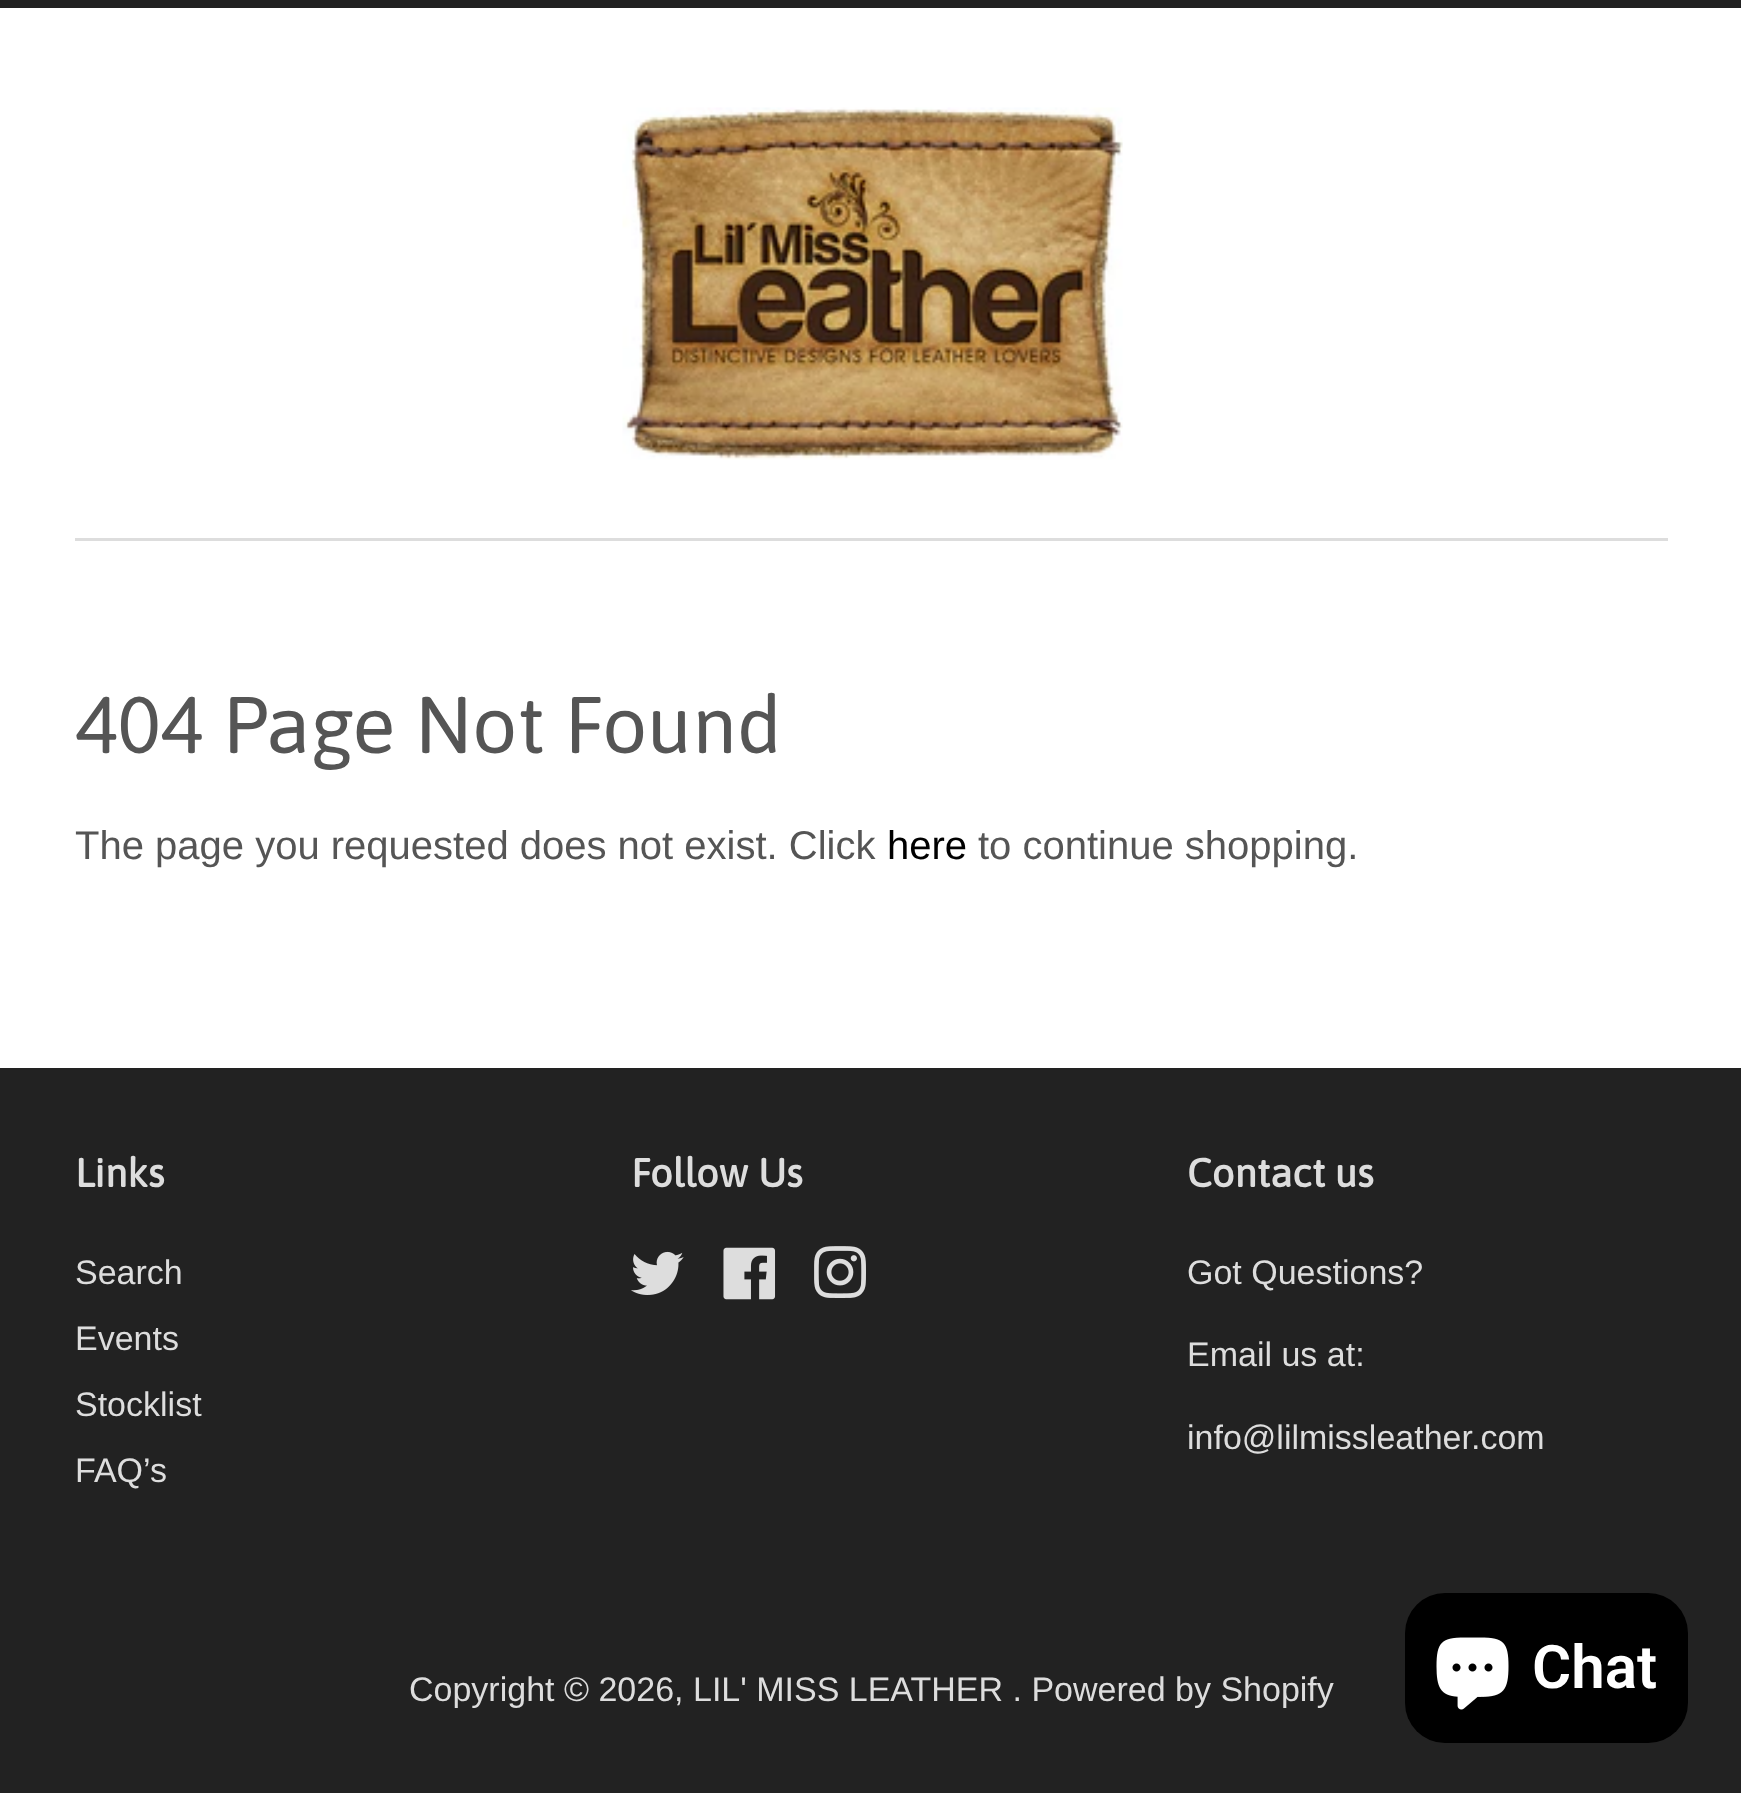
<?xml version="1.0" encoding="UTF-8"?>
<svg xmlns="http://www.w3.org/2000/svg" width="1741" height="1793">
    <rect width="100%" height="100%" fill="#FFFFFF"/>
    <rect x="0" y="0" width="1741" height="8" fill="#222222"/>
    <rect x="75" y="538" width="1593" height="3" fill="#DDDDDD"/>
    <image x="622" y="107" width="501" height="353" href="img_01.png"/>
    <text x="75" y="753" font-family="Asap" font-size="80" fill="#555555">404 Page Not Found</text>
    <text x="75" y="859" font-family="Liberation Sans" font-size="40" fill="#555555">The page you requested does not exist. Click</text>
    <text x="887" y="859" font-family="Liberation Sans" font-size="40" fill="#000000">here</text>
    <text x="978" y="859" font-family="Liberation Sans" font-size="40" fill="#555555">to continue shopping.</text>
    <rect x="0" y="1068" width="1741" height="725" fill="#222222"/>
    <text x="75" y="1187" font-family="Asap" font-size="40" font-weight="700" fill="#DDDDDD">Links</text>
    <text font-family="Liberation Sans" font-size="34" fill="#DDDDDD">
        <tspan x="75" y="1284">Search</tspan>
        <tspan x="75" y="1350">Events</tspan>
        <tspan x="75" y="1416">Stocklist</tspan>
        <tspan x="75" y="1482">FAQ’s</tspan>
    </text>
    <text x="631" y="1187" font-family="Asap" font-size="40" font-weight="700" fill="#DDDDDD">Follow Us</text>
    <image x="631" y="1251" width="53" height="44" href="img_02.png"/>
    <image x="723" y="1247" width="53" height="53" href="img_03.png"/>
    <image x="814" y="1246" width="52" height="52" href="img_04.png"/>
    <text x="1187" y="1187" font-family="Asap" font-size="40" font-weight="700" fill="#DDDDDD">Contact us</text>
    <text x="1187" y="1284" font-family="Liberation Sans" font-size="34" fill="#DDDDDD">Got Questions?</text>
    <text x="1187" y="1366" font-family="Liberation Sans" font-size="34" fill="#DDDDDD">Email us at:</text>
    <text x="1187" y="1449" font-family="Liberation Sans" font-size="34" fill="#DDDDDD">info@lilmissleather.com</text>
    <text x="409" y="1701" font-family="Liberation Sans" font-size="34" fill="#DDDDDD">Copyright © 2026, LIL' MISS LEATHER . Powered by Shopify</text>
    <rect x="1405" y="1593" width="283" height="150" rx="40" fill="#000000"/>
    <image x="1436" y="1637" width="73" height="73" href="img_05.png"/>
    <text x="1532" y="1688" font-family="Roboto" font-size="60" font-weight="600" fill="#FFFFFF">Chat</text>
</svg>
